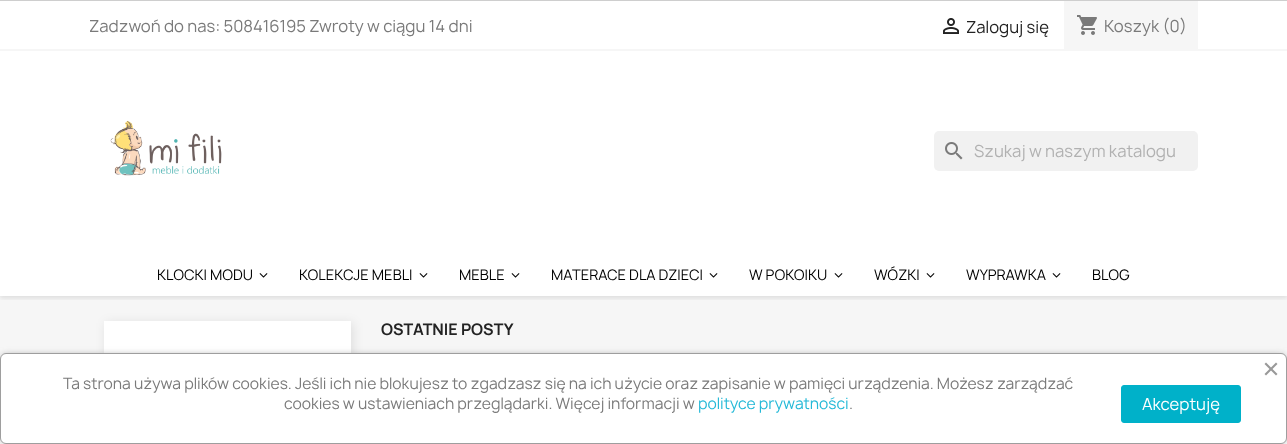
<?xml version="1.0" encoding="UTF-8"?>
<svg xmlns="http://www.w3.org/2000/svg" width="1287" height="444">
    <defs>
        <clipPath id="clip1"><rect x="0" y="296" width="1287" height="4"/></clipPath>
        <filter id="blur1" x="-50%" y="-200%" width="200%" height="500%"><feGaussianBlur stdDeviation="2.5"/></filter>
        <filter id="blur2" x="-50%" y="-200%" width="200%" height="500%"><feGaussianBlur stdDeviation="5.5"/></filter>
        <filter id="blur3" x="-50%" y="-200%" width="200%" height="500%"><feGaussianBlur stdDeviation="3.5"/></filter>
    </defs>
    <rect width="100%" height="100%" fill="#FFFFFF"/>
    <rect x="0" y="0" width="1287" height="1" fill="#CECECE"/>
    <rect x="0" y="296" width="1287" height="148" fill="#F6F6F6"/>
    <g clip-path="url(#clip1)">
        <rect x="0" y="3" width="1287" height="295" fill="#000000" fill-opacity="0.11" filter="url(#blur1)"/>
    </g>
    <rect x="0" y="49" width="1287" height="2" fill="#F6F6F6"/>
    <text x="89" y="32" font-family="Manrope" font-size="16" fill="#7A7A7A">Zadzwoń do nas: 508416195 Zwroty w ciągu 14 dni</text>
    <image x="943" y="18" width="16" height="16" href="img_01.png"/>
    <text x="966" y="33" font-family="Manrope" font-size="16" fill="#232323">Zaloguj się</text>
    <rect x="1064" y="1" width="134" height="48" fill="#F6F6F6"/>
    <image x="1077" y="15" width="20" height="20" href="img_02.png"/>
    <text x="1104" y="32" font-family="Manrope" font-size="16" fill="#7A7A7A">Koszyk (0)</text>
    <image x="110" y="120" width="112" height="56" href="img_03.png"/>
    <rect x="934" y="131" width="264" height="40" rx="5" fill="#F1F1F1"/>
    <image x="945" y="142" width="18" height="18" href="img_04.png"/>
    <text x="974" y="157" font-family="Manrope" font-size="16" fill="#B1B1B1">Szukaj w naszym katalogu</text>
    <text x="157" y="280" font-family="Manrope" font-size="14" fill="#000000">KLOCKI MODU</text>
    <image x="259" y="273" width="9" height="5" href="img_05.png"/>
    <text x="299" y="280" font-family="Manrope" font-size="14" fill="#000000">KOLEKCJE MEBLI</text>
    <image x="419" y="273" width="9" height="5" href="img_05.png"/>
    <text x="459" y="280" font-family="Manrope" font-size="14" fill="#000000">MEBLE</text>
    <image x="511" y="273" width="9" height="5" href="img_05.png"/>
    <text x="551" y="280" font-family="Manrope" font-size="14" fill="#000000">MATERACE DLA DZIECI</text>
    <image x="709" y="273" width="9" height="5" href="img_05.png"/>
    <text x="749" y="280" font-family="Manrope" font-size="14" fill="#000000">W POKOIKU</text>
    <image x="834" y="273" width="9" height="5" href="img_05.png"/>
    <text x="874" y="280" font-family="Manrope" font-size="14" fill="#000000">WÓZKI</text>
    <image x="926" y="273" width="9" height="5" href="img_05.png"/>
    <text x="966" y="280" font-family="Manrope" font-size="14" fill="#000000">WYPRAWKA</text>
    <image x="1052" y="273" width="9" height="5" href="img_05.png"/>
    <text x="1092" y="280" font-family="Manrope" font-size="14" fill="#000000">BLOG</text>
    <rect x="106" y="323" width="247" height="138" fill="#000000" fill-opacity="0.1" filter="url(#blur2)"/>
    <rect x="104" y="321" width="247" height="32" fill="#FFFFFF"/>
    <text x="381" y="335" font-family="Manrope" font-size="16" font-weight="700" fill="#232323">OSTATNIE POSTY</text>
    <rect x="2" y="355" width="1283" height="87" rx="4" fill="#9E9E9E" filter="url(#blur3)"/>
    <rect x="0.5" y="353.5" width="1286" height="90" rx="5.5" fill="#FFFFFF" stroke="#9E9E9E"/>
    <path d="M 1264.5 374 L 1276 362.5 L 1277.5 364 L 1266 375.5 Z" fill="#999999"/>
    <path d="M 1266 362.5 L 1277.5 374 L 1276 375.5 L 1264.5 364 Z" fill="#999999"/>
    <text x="63" y="389" font-family="Manrope" font-size="15" fill="#7A7A7A">Ta strona używa plików cookies. Jeśli ich nie blokujesz to zgadzasz się na ich użycie oraz zapisanie w pamięci urządzenia. Możesz zarządzać</text>
    <text x="284" y="409" font-family="Manrope" font-size="15" fill="#7A7A7A">cookies w ustawieniach przeglądarki. Więcej informacji w</text>
    <text x="698" y="409" font-family="Manrope" font-size="15" fill="#24B9D7">polityce prywatności</text>
    <text x="849" y="409" font-family="Manrope" font-size="15" fill="#7A7A7A">.</text>
    <rect x="1121.5" y="385.5" width="119" height="37" rx="2.5" fill="#00B1C9" stroke="#00B1C9"/>
    <text x="1142" y="410" font-family="Manrope" font-size="16" fill="#FFFFFF">Akceptuję</text>
</svg>
